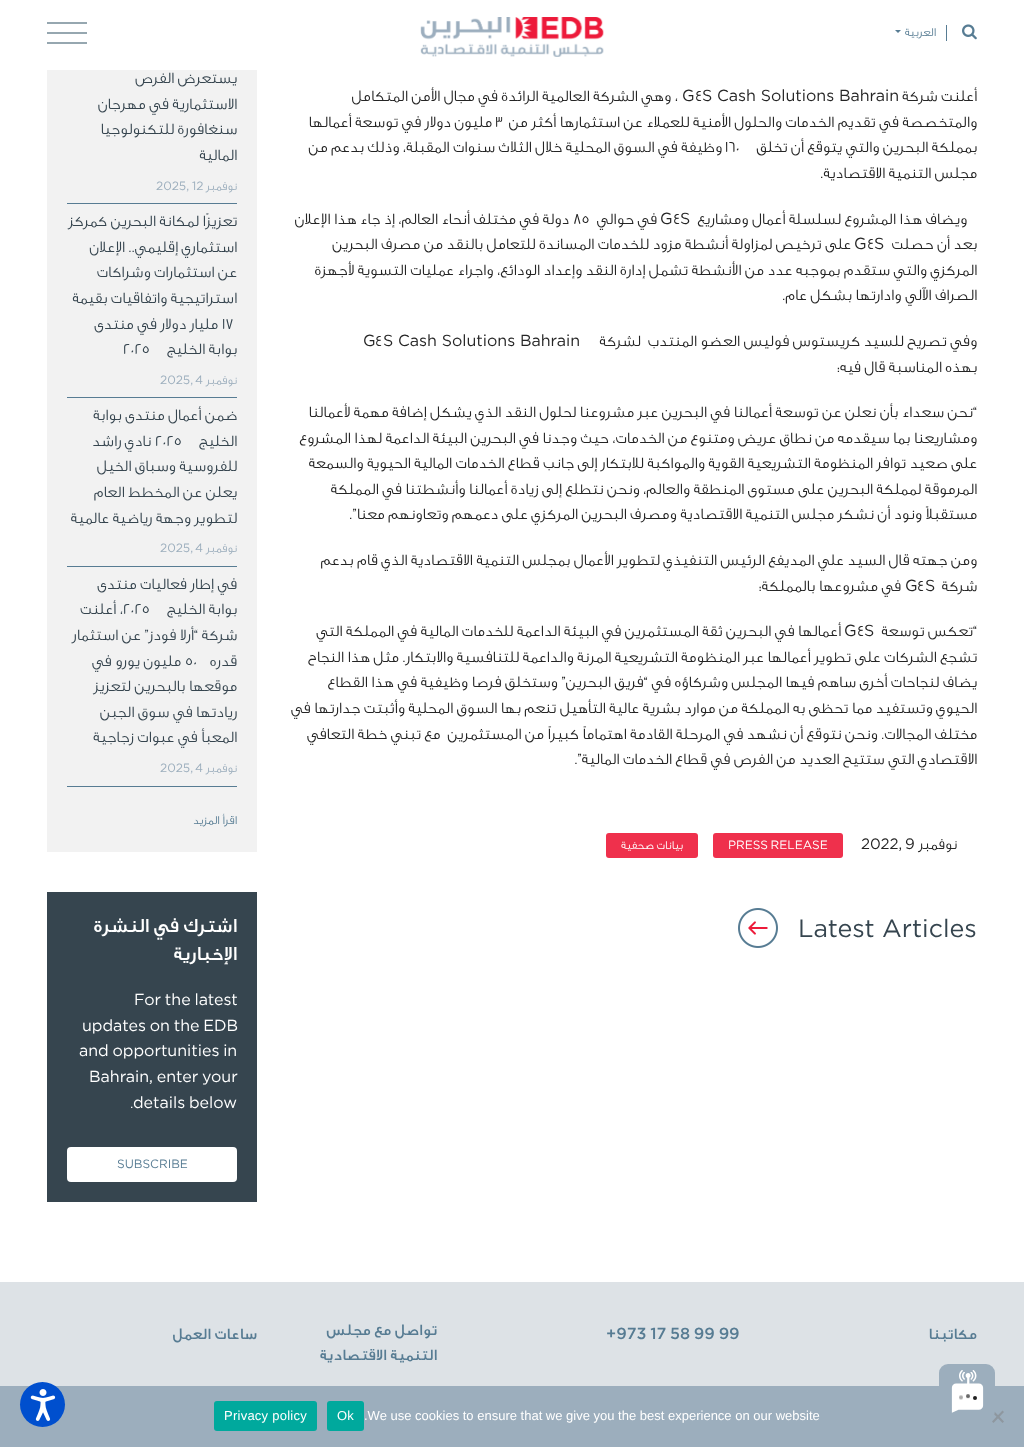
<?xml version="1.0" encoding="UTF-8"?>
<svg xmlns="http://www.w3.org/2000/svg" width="1024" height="1447">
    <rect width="100%" height="100%" fill="#FFFFFF"/>
    <image x="962" y="24" width="15" height="16" href="img_01.png"/>
    <rect x="946" y="25" width="1" height="16" fill="#577C93"/>
    <text x="936" y="36" font-family="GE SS" font-size="12" font-weight="300" direction="rtl" fill="#577C93">العربية</text>
    <path d="M 895 30 H 901 L 898 33 Z" fill="#577C93"/>
    <image x="420" y="17" width="184" height="40" href="img_02.png"/>
    <rect x="47" y="22" width="40" height="2" fill="#96A7B0"/>
    <rect x="47" y="32" width="40" height="2" fill="#96A7B0"/>
    <rect x="47" y="42" width="40" height="2" fill="#96A7B0"/>
    <text x="977" y="101" font-family="GE SS" font-size="16" font-weight="300" direction="rtl" fill="#252525">أعلنت شركة</text>
    <text x="702" y="101" font-family="Gotham" font-size="16" fill="#252525">S Cash Solutions Bahrain</text>
    <text x="695" y="101" font-family="GE SS" font-size="16" font-weight="300" fill="#252525">4</text>
    <text x="682" y="101" font-family="Gotham" font-size="16" fill="#252525">G</text>
    <text x="678" y="101" font-family="GE SS" font-size="16" font-weight="300" direction="rtl" fill="#252525">، وهي الشركة العالمية الرائدة في مجال الأمن المتكامل</text>
    <text x="977" y="127" font-family="GE SS" font-size="16" font-weight="300" direction="rtl" fill="#252525">والمتخصصة في تقديم الخدمات والحلول الأمنية للعملاء عن استثمارها أكثر من</text>
    <text x="495" y="127" font-family="GE SS" font-size="16" font-weight="300" fill="#252525">3</text>
    <text x="492" y="127" font-family="GE SS" font-size="16" font-weight="300" direction="rtl" fill="#252525">مليون دولار في توسعة أعمالها</text>
    <text x="977" y="152" font-family="GE SS" font-size="16" font-weight="300" direction="rtl" fill="#252525">بمملكة البحرين والتي يتوقع أن تخلق</text>
    <text x="725" y="152" font-family="GE SS" font-size="16" font-weight="300" fill="#252525">160</text>
    <text x="722" y="152" font-family="GE SS" font-size="16" font-weight="300" direction="rtl" fill="#252525">وظيفة في السوق المحلية خلال الثلاث سنوات المقبلة، وذلك بدعم من</text>
    <text x="977" y="178" font-family="GE SS" font-size="16" font-weight="300" direction="rtl" fill="#252525">مجلس التنمية الاقتصادية.</text>
    <text x="967" y="224" font-family="GE SS" font-size="16" font-weight="300" direction="rtl" fill="#252525">ويضاف هذا المشروع لسلسلة أعمال ومشاريع</text>
    <text x="680" y="224" font-family="Gotham" font-size="16" fill="#252525">S</text>
    <text x="673" y="224" font-family="GE SS" font-size="16" font-weight="300" fill="#252525">4</text>
    <text x="660" y="224" font-family="Gotham" font-size="16" fill="#252525">G</text>
    <text x="657" y="224" font-family="GE SS" font-size="16" font-weight="300" direction="rtl" fill="#252525">في حوالي</text>
    <text x="573" y="224" font-family="GE SS" font-size="16" font-weight="300" fill="#252525">85</text>
    <text x="569" y="224" font-family="GE SS" font-size="16" font-weight="300" direction="rtl" fill="#252525">دولة في مختلف أنحاء العالم، إذ جاء هذا الإعلان</text>
    <text x="977" y="249" font-family="GE SS" font-size="16" font-weight="300" direction="rtl" fill="#252525">بعد أن حصلت</text>
    <text x="874" y="249" font-family="Gotham" font-size="16" fill="#252525">S</text>
    <text x="867" y="249" font-family="GE SS" font-size="16" font-weight="300" fill="#252525">4</text>
    <text x="854" y="249" font-family="Gotham" font-size="16" fill="#252525">G</text>
    <text x="851" y="249" font-family="GE SS" font-size="16" font-weight="300" direction="rtl" fill="#252525">على ترخيص لمزاولة أنشطة مزود للخدمات المساندة للتعامل بالنقد من مصرف البحرين</text>
    <text font-family="GE SS" font-size="16" font-weight="300" direction="rtl" fill="#252525">
        <tspan x="977" y="275">المركزي والتي ستقدم بموجبه عدد من الأنشطة تشمل إدارة النقد وإعداد الودائع، واجراء عمليات التسوية لأجهزة</tspan>
        <tspan x="977" y="300">الصراف الآلي وادارتها بشكل عام.</tspan>
    </text>
    <text x="977" y="346" font-family="GE SS" font-size="16" font-weight="300" direction="rtl" fill="#252525" xml:space="preserve">وفي تصريح للسيد كريستوس فوليس العضو المنتدب  لشركة</text>
    <text x="383" y="346" font-family="Gotham" font-size="16" fill="#252525">S Cash Solutions Bahrain</text>
    <text x="375" y="346" font-family="GE SS" font-size="16" font-weight="300" fill="#252525">4</text>
    <text x="363" y="346" font-family="Gotham" font-size="16" fill="#252525">G</text>
    <text x="977" y="372" font-family="GE SS" font-size="16" font-weight="300" direction="rtl" fill="#252525">بهذه المناسبة قال فيه:</text>
    <text font-family="GE SS" font-size="16" font-weight="300" direction="rtl" fill="#252525">
        <tspan x="977" y="417">“نحن سعداء بأن نعلن عن توسعة أعمالنا في البحرين عبر مشروعنا لحلول النقد الذي يشكل إضافة مهمة لأعمالنا</tspan>
        <tspan x="977" y="443">ومشاريعنا بما سيقدمه من نطاق عريض ومتنوع من الخدمات، حيث وجدنا في البحرين البيئة الداعمة لهذا المشروع</tspan>
        <tspan x="977" y="468">على صعيد توافر المنظومة التشريعية القوية والمواكبة للابتكار إلى جانب قطاع الخدمات المالية الحيوية والسمعة</tspan>
        <tspan x="977" y="494">المرموقة لمملكة البحرين على مستوى المنطقة والعالم، ونحن نتطلع إلى زيادة أعمالنا وأنشطتنا في المملكة</tspan>
        <tspan x="977" y="519">مستقبلاً ونود أن نشكر مجلس التنمية الاقتصادية ومصرف البحرين المركزي على دعمهم وتعاونهم معنا”.</tspan>
    </text>
    <text font-family="GE SS" font-size="16" font-weight="300" direction="rtl" fill="#252525">
        <tspan x="977" y="565">ومن جهته قال السيد علي المديفع الرئيس التنفيذي لتطوير الأعمال بمجلس التنمية الاقتصادية الذي قام بدعم</tspan>
        <tspan x="977" y="591">شركة</tspan>
    </text>
    <text x="925" y="591" font-family="Gotham" font-size="16" fill="#252525">S</text>
    <text x="917" y="591" font-family="GE SS" font-size="16" font-weight="300" fill="#252525">4</text>
    <text x="905" y="591" font-family="Gotham" font-size="16" fill="#252525">G</text>
    <text x="901" y="591" font-family="GE SS" font-size="16" font-weight="300" direction="rtl" fill="#252525">في مشروعها بالمملكة:</text>
    <text x="977" y="636" font-family="GE SS" font-size="16" font-weight="300" direction="rtl" fill="#252525">“تعكس توسعة</text>
    <text x="864" y="636" font-family="Gotham" font-size="16" fill="#252525">S</text>
    <text x="857" y="636" font-family="GE SS" font-size="16" font-weight="300" fill="#252525">4</text>
    <text x="844" y="636" font-family="Gotham" font-size="16" fill="#252525">G</text>
    <text x="841" y="636" font-family="GE SS" font-size="16" font-weight="300" direction="rtl" fill="#252525">أعمالها في البحرين ثقة المستثمرين في البيئة الداعمة للخدمات المالية في المملكة التي</text>
    <text font-family="GE SS" font-size="16" font-weight="300" direction="rtl" fill="#252525" xml:space="preserve"><tspan x="977" y="662">تشجع الشركات على تطوير أعمالها عبر المنظومة التشريعية المرنة والداعمة للتنافسية والابتكار. مثل هذا النجاح</tspan><tspan x="977" y="687">يضاف لنجاحات أخرى ساهم فيها المجلس وشركاؤه في “فريق البحرين” وستخلق فرصا وظيفية في هذا القطاع</tspan><tspan x="977" y="713">الحيوي وتستفيد مما تحظى به المملكة من موارد بشرية عالية التأهيل تنعم بها السوق المحلية وأثبتت جدارتها في</tspan><tspan x="977" y="739">مختلف المجالات. ونحن نتوقع أن نشهد في المرحلة القادمة اهتماماً كبيراً من المستثمرين  مع تبني خطة التعافي</tspan><tspan x="977" y="764">الاقتصادي التي ستتيح العديد من الفرص في قطاع الخدمات المالية”.</tspan></text>
    <text x="957" y="849" font-family="GE SS" font-size="15" font-weight="300" direction="rtl" fill="#252525">نوفمبر</text>
    <text x="905" y="849" font-family="Gotham" font-size="15" fill="#252525">9</text>
    <text x="861" y="849" font-family="Gotham" font-size="15" fill="#252525">2022,</text>
    <rect x="713" y="833" width="130" height="25" rx="3" fill="#EF304C"/>
    <text x="728" y="849" word-spacing="-1" font-family="Gotham" font-size="12" fill="#FFFFFF">PRESS RELEASE</text>
    <rect x="606" y="833" width="92" height="25" rx="3" fill="#EF304C"/>
    <text x="683" y="849" font-family="GE SS" font-size="12" font-weight="300" direction="rtl" fill="#FFFFFF">بيانات صحفية</text>
    <image x="738" y="908" width="40" height="40" href="img_03.png"/>
    <text x="798" y="937" font-family="Gotham" font-size="25" fill="#36454F">Latest Articles</text>
    <rect x="47" y="70" width="210" height="782" fill="#F2F2F2"/>
    <rect x="67" y="203" width="170" height="1" fill="#577C93"/>
    <text font-family="GE SS" font-size="16" font-weight="300" direction="rtl" fill="#36454F">
        <tspan x="237" y="83">يستعرض الفرص</tspan>
        <tspan x="237" y="109">الاستثمارية في مهرجان</tspan>
        <tspan x="237" y="134">سنغافورة للتكنولوجيا</tspan>
        <tspan x="237" y="160">المالية</tspan>
    </text>
    <text x="237" y="190" font-family="GE SS" font-size="12" font-weight="300" direction="rtl" fill="#9CAEBD">نوفمبر</text>
    <text x="192" y="190" font-family="Gotham" font-size="12" fill="#9CAEBD">12</text>
    <text x="156" y="190" font-family="Gotham" font-size="12" fill="#9CAEBD">2025,</text>
    <rect x="67" y="397" width="170" height="1" fill="#577C93"/>
    <text font-family="GE SS" font-size="16" font-weight="300" direction="rtl" fill="#36454F">
        <tspan x="237" y="226">تعزيزًا لمكانة البحرين كمركز</tspan>
        <tspan x="237" y="252">استثماري إقليمي.. الإعلان</tspan>
        <tspan x="237" y="277">عن استثمارات وشراكات</tspan>
        <tspan x="237" y="303">استراتيجية واتفاقيات بقيمة</tspan>
    </text>
    <text x="222" y="329" font-family="GE SS" font-size="16" font-weight="300" fill="#36454F">17</text>
    <text x="218" y="329" font-family="GE SS" font-size="16" font-weight="300" direction="rtl" fill="#36454F">مليار دولار في منتدى</text>
    <text x="237" y="354" font-family="GE SS" font-size="16" font-weight="300" direction="rtl" fill="#36454F">بوابة الخليج</text>
    <text x="123" y="354" font-family="GE SS" font-size="16" font-weight="300" fill="#36454F">2025</text>
    <text x="237" y="384" font-family="GE SS" font-size="12" font-weight="300" direction="rtl" fill="#9CAEBD">نوفمبر</text>
    <text x="195" y="384" font-family="Gotham" font-size="12" fill="#9CAEBD">4</text>
    <text x="160" y="384" font-family="Gotham" font-size="12" fill="#9CAEBD">2025,</text>
    <rect x="67" y="566" width="170" height="1" fill="#577C93"/>
    <text font-family="GE SS" font-size="16" font-weight="300" direction="rtl" fill="#36454F">
        <tspan x="237" y="420">ضمن أعمال منتدى بوابة</tspan>
        <tspan x="237" y="446">الخليج</tspan>
    </text>
    <text x="155" y="446" font-family="GE SS" font-size="16" font-weight="300" fill="#36454F">2025</text>
    <text x="151" y="446" font-family="GE SS" font-size="16" font-weight="300" direction="rtl" fill="#36454F">نادي راشد</text>
    <text font-family="GE SS" font-size="16" font-weight="300" direction="rtl" fill="#36454F">
        <tspan x="237" y="471">للفروسية وسباق الخيل</tspan>
        <tspan x="237" y="497">يعلن عن المخطط العام</tspan>
        <tspan x="237" y="523">لتطوير وجهة رياضية عالمية</tspan>
    </text>
    <text x="237" y="552" font-family="GE SS" font-size="12" font-weight="300" direction="rtl" fill="#9CAEBD">نوفمبر</text>
    <text x="195" y="552" font-family="Gotham" font-size="12" fill="#9CAEBD">4</text>
    <text x="160" y="552" font-family="Gotham" font-size="12" fill="#9CAEBD">2025,</text>
    <rect x="67" y="786" width="170" height="1" fill="#577C93"/>
    <text font-family="GE SS" font-size="16" font-weight="300" direction="rtl" fill="#36454F">
        <tspan x="237" y="589">في إطار فعاليات منتدى</tspan>
        <tspan x="237" y="614">بوابة الخليج</tspan>
    </text>
    <text x="123" y="614" font-family="GE SS" font-size="16" font-weight="300" fill="#36454F">2025</text>
    <text x="123" y="614" font-family="GE SS" font-size="16" font-weight="300" direction="rtl" fill="#36454F">، أعلنت</text>
    <text font-family="GE SS" font-size="16" font-weight="300" direction="rtl" fill="#36454F">
        <tspan x="237" y="640">شركة “أرلا فودز” عن استثمار</tspan>
        <tspan x="237" y="666">قدره</tspan>
    </text>
    <text x="185" y="666" font-family="GE SS" font-size="16" font-weight="300" fill="#36454F">50</text>
    <text x="181" y="666" font-family="GE SS" font-size="16" font-weight="300" direction="rtl" fill="#36454F">مليون يورو في</text>
    <text font-family="GE SS" font-size="16" font-weight="300" direction="rtl" fill="#36454F">
        <tspan x="237" y="691">موقعها بالبحرين لتعزيز</tspan>
        <tspan x="237" y="717">ريادتها في سوق الجبن</tspan>
        <tspan x="237" y="742">المعبأ في عبوات زجاجية</tspan>
    </text>
    <text x="237" y="772" font-family="GE SS" font-size="12" font-weight="300" direction="rtl" fill="#9CAEBD">نوفمبر</text>
    <text x="195" y="772" font-family="Gotham" font-size="12" fill="#9CAEBD">4</text>
    <text x="160" y="772" font-family="Gotham" font-size="12" fill="#9CAEBD">2025,</text>
    <text x="237" y="824" font-family="GE SS" font-size="12" font-weight="300" direction="rtl" fill="#577C93">اقرأ المزيد</text>
    <rect x="47" y="892" width="210" height="310" fill="#36454F"/>
    <text font-family="GE SS" font-size="20" font-weight="500" direction="rtl" fill="#FFFFFF">
        <tspan x="237" y="932">اشترك في النشرة</tspan>
        <tspan x="237" y="960">الإخبارية</tspan>
    </text>
    <text x="134" y="1005" word-spacing="-1" font-family="Gotham" font-size="16" fill="#FFFFFF">For the latest</text>
    <text x="82" y="1031" word-spacing="-1" font-family="Gotham" font-size="16" fill="#FFFFFF">updates on the EDB</text>
    <text x="79" y="1056" word-spacing="-1" font-family="Gotham" font-size="16" fill="#FFFFFF">and opportunities in</text>
    <text x="89" y="1082" word-spacing="-1" font-family="Gotham" font-size="16" fill="#FFFFFF">Bahrain, enter your</text>
    <text x="133" y="1108" word-spacing="-1" font-family="Gotham" font-size="16" fill="#FFFFFF">details below</text>
    <text x="130" y="1108" font-family="GE SS" font-size="16" font-weight="300" fill="#FFFFFF">.</text>
    <rect x="67" y="1147" width="170" height="35" rx="4" fill="#FFFFFF"/>
    <text x="117" y="1168" font-family="Gotham" font-size="12" fill="#577C93">SUBSCRIBE</text>
    <rect x="0" y="1282" width="1024" height="104" fill="#DDE2E6"/>
    <text x="977" y="1339" font-family="GE SS" font-size="16" font-weight="500" direction="rtl" fill="#577C93">مكاتبنا</text>
    <text x="606" y="1339" word-spacing="-1" font-family="Gotham" font-size="16" font-weight="500" fill="#577C93">+973 17 58 99 99</text>
    <text font-family="GE SS" font-size="16" font-weight="500" direction="rtl" fill="#577C93">
        <tspan x="437" y="1335">تواصل مع مجلس</tspan>
        <tspan x="437" y="1360">التنمية الاقتصادية</tspan>
    </text>
    <text x="257" y="1339" font-family="GE SS" font-size="16" font-weight="500" direction="rtl" fill="#577C93">ساعات العمل</text>
    <rect x="0" y="1386" width="1024" height="61" fill="#9CAEBD"/>
    <path d="M 1002.5 1410.5 L 1004 1412 L 993.5 1423 L 992 1421.5 Z" fill="#8E979F"/>
    <path d="M 992 1412 L 993.5 1410.5 L 1004 1421.5 L 1002.5 1423 Z" fill="#8E979F"/>
    <image x="939" y="1364" width="56" height="50" href="img_04.png"/>
    <text x="364" y="1420" font-family="Liberation Sans" font-size="13" fill="#FFFFFF">.We use cookies to ensure that we give you the best experience on our website</text>
    <rect x="327" y="1401" width="37" height="30" rx="3" fill="#00A99D"/>
    <text x="337" y="1420" font-family="Liberation Sans" font-size="13" letter-spacing="0.25" fill="#FFFFFF">Ok</text>
    <rect x="214" y="1401" width="103" height="30" rx="3" fill="#00A99D"/>
    <text x="224" y="1420" font-family="Liberation Sans" font-size="13" letter-spacing="0.25" fill="#FFFFFF">Privacy policy</text>
    <circle cx="42.5" cy="1404.5" r="22.5" fill="#004FCE"/>
    <image x="30" y="1389" width="26" height="32" href="img_05.png"/>
</svg>
